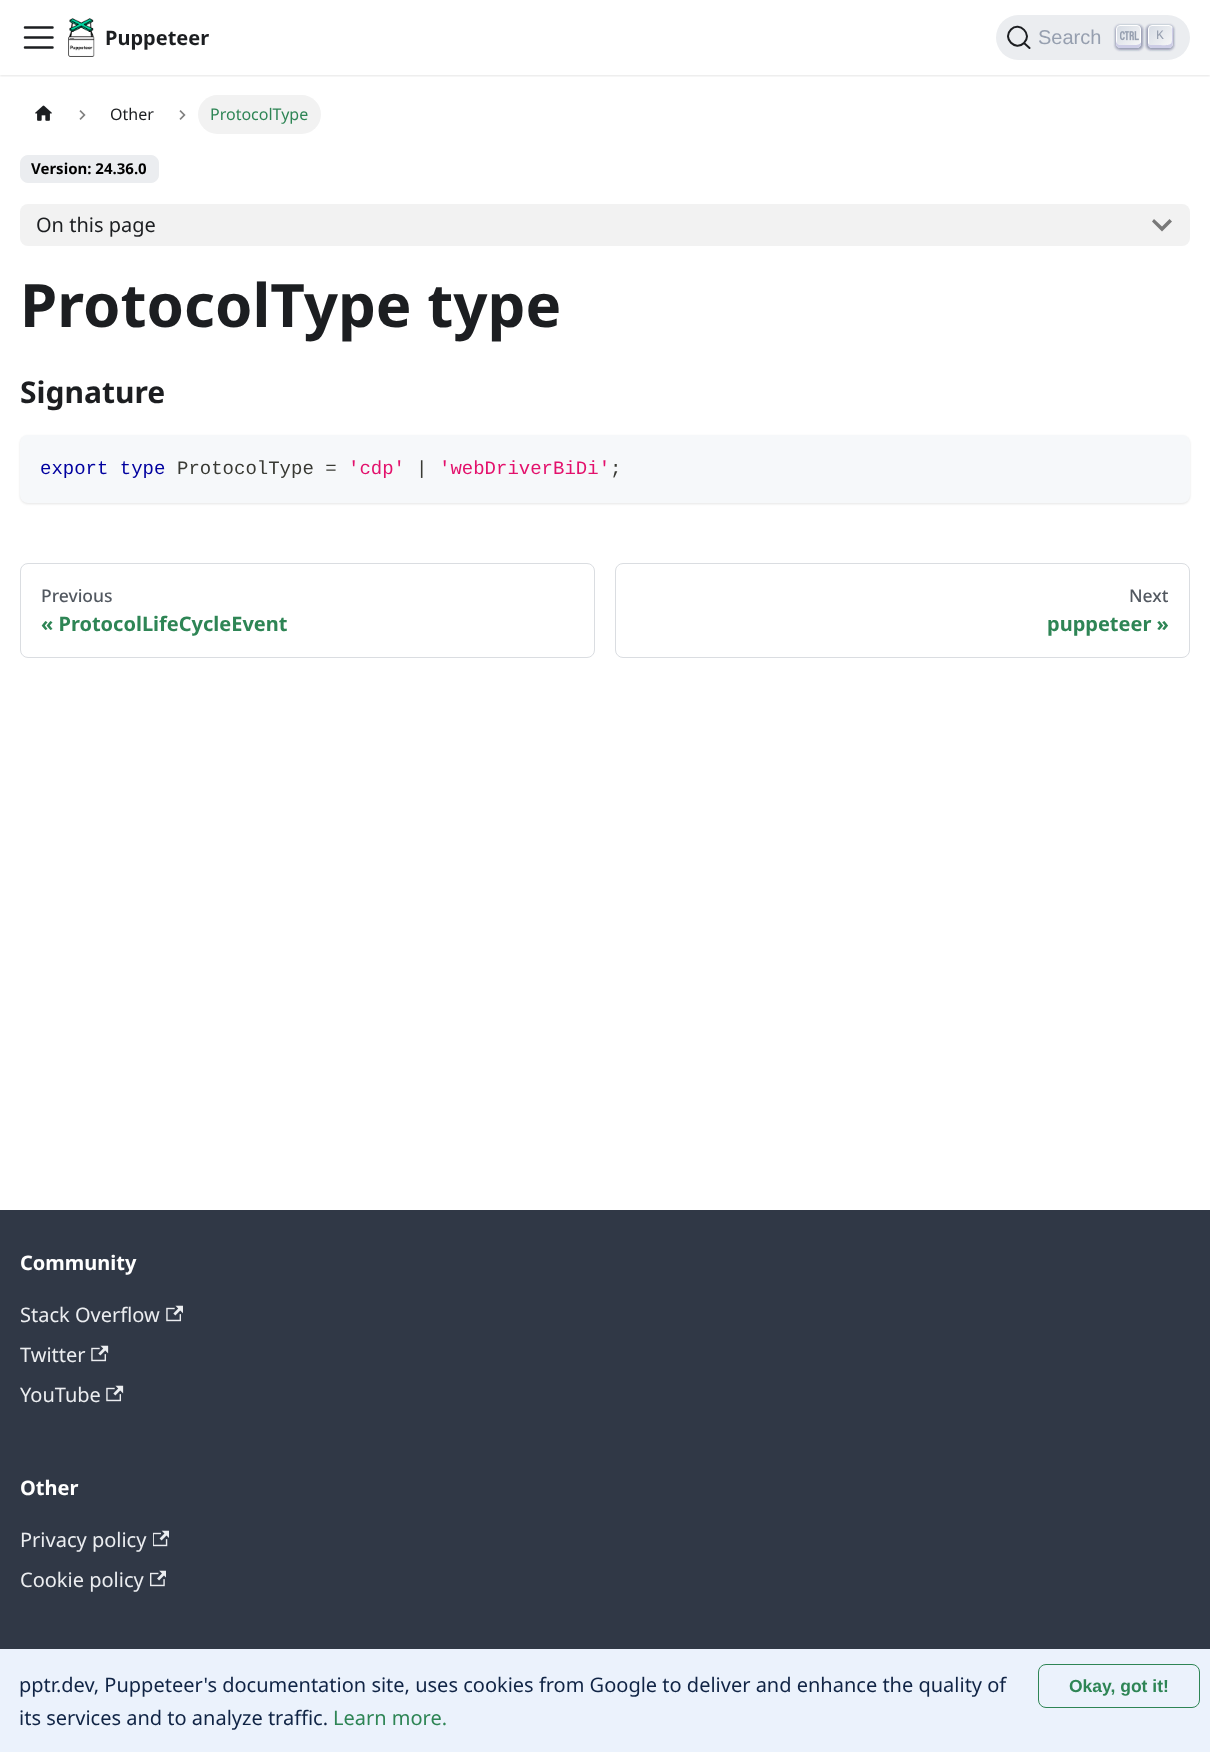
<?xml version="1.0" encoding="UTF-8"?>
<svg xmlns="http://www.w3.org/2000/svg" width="1210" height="1752">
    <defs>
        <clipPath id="clip1"><rect x="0" y="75" width="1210" height="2"/></clipPath>
        <filter id="blur1" x="-50%" y="-200%" width="200%" height="500%"><feGaussianBlur stdDeviation="1"/></filter>
        <linearGradient id="g1" gradientUnits="userSpaceOnUse" x1="1117" y1="24" x2="1141" y2="48"><stop offset="0" stop-color="#D5DBE4"/><stop offset="1" stop-color="#F8F8F8"/></linearGradient>
        <linearGradient id="g2" gradientUnits="userSpaceOnUse" x1="1148" y1="24" x2="1172" y2="48"><stop offset="0" stop-color="#D5DBE4"/><stop offset="1" stop-color="#F8F8F8"/></linearGradient>
    </defs>
    <rect width="100%" height="100%" fill="#FFFFFF"/>
    <g clip-path="url(#clip1)">
        <rect x="0" y="1" width="1210" height="75" fill="#000000" fill-opacity="0.1" filter="url(#blur1)"/>
    </g>
    <path d="M 25 27.5 H 52.5 M 25 37.5 H 52.5 M 25 47.5 H 52.5" fill="none" stroke="#1C1E21" stroke-width="2.5" stroke-linecap="round"/>
    <image x="68" y="18" width="27" height="39" href="img_01.png"/>
    <text x="105" y="45" font-family="Noto Sans" font-size="20" font-weight="700" fill="#1C1E21">Puppeteer</text>
    <rect x="996" y="15" width="194" height="45" rx="22.5" fill="#EBEDF0"/>
    <path d="M 1024 43 L 1029.5 48 L 1024 43 C 1015.5 51.5 1002 38.5 1011 29.5 C 1019.5 21 1033 34.5 1024 43 Z" fill="none" stroke="#1C1E21" stroke-width="2" stroke-linecap="round" stroke-linejoin="round"/>
    <text x="1038" y="44" font-family="Liberation Sans" font-size="20" fill="#969FAF">Search</text>
    <rect x="1115" y="25" width="28" height="25" rx="5" fill="#1E235A" fill-opacity="0.4" filter="url(#blur1)"/>
    <rect x="1116.5" y="25.5" width="24" height="22" rx="3.5" fill="url(#g1)" stroke="#FFFFFF"/>
    <path d="M 1141 42 C 1140.5 44 1139 45 1135 45 H 1120 C 1117 45 1116 42.5 1116 39.5 V 44 C 1116 46 1118 48 1120 48 H 1137 C 1139 48 1141 46 1141 44 Z" fill="#CDCDE6"/>
    <image x="1120" y="31" width="19" height="10" href="img_02.png"/>
    <rect x="1146" y="25" width="28" height="25" rx="5" fill="#1E235A" fill-opacity="0.4" filter="url(#blur1)"/>
    <rect x="1148.5" y="25.5" width="24" height="22" rx="3.5" fill="url(#g2)" stroke="#FFFFFF"/>
    <path d="M 1172 26.5 V 34 V 40.5 L 1171.5 43 C 1170 46 1161.5 45 1158.5 45 H 1153.5 C 1151 45 1149 45.5 1148 43 C 1148 48 1150.5 48 1155 48 H 1160.5 C 1173.5 48 1173 49.5 1173 36.5 C 1173 34 1174 28.5 1172 26.5 Z" fill="#CDCDE6"/>
    <text x="1156" y="39" font-family="Liberation Mono" font-size="13" fill="#969FAF">K</text>
    <image x="35" y="105" width="17" height="16" href="img_03.png"/>
    <image x="79" y="110" width="7" height="10" href="img_04.png"/>
    <text x="110" y="120" font-family="Noto Sans" font-size="16" fill="#1C1E21">Other</text>
    <image x="179" y="110" width="7" height="10" href="img_04.png"/>
    <rect x="198" y="95" width="123" height="39" rx="19.5" fill="#F2F2F2"/>
    <text x="210" y="120" font-family="Noto Sans" font-size="16" fill="#2E8555">ProtocolType</text>
    <rect x="20.5" y="155.5" width="138" height="27" rx="7.5" fill="#EBEDF0" stroke="#EBEDF0"/>
    <text x="31" y="174" font-family="Noto Sans" font-size="15" font-weight="700" fill="#000000">Version: 24.36.0</text>
    <rect x="20" y="204" width="1170" height="42" rx="8" fill="#F2F2F2"/>
    <text x="36" y="232" font-family="Noto Sans" font-size="20" fill="#1C1E21">On this page</text>
    <path d="M 1169.5 219 L 1162 226.5 L 1154 219 L 1152 221.5 L 1162 231.5 L 1172 221.5 Z" fill="#797979"/>
    <text x="20" y="327" font-family="Noto Sans" font-size="60" font-weight="700" fill="#1C1E21">ProtocolType type</text>
    <text x="20" y="403" font-family="Noto Sans" font-size="30" font-weight="700" fill="#1C1E21">Signature</text>
    <rect x="20" y="436" width="1170" height="68" rx="8" fill="#000000" fill-opacity="0.1" filter="url(#blur1)"/>
    <rect x="20" y="435" width="1170" height="68" rx="8" fill="#F6F8FA"/>
    <text x="40" y="474" font-family="Liberation Mono" font-size="19" fill="#00009F">export type</text>
    <text x="177" y="474" font-family="Liberation Mono" font-size="19" fill="#393A34">ProtocolType =</text>
    <text x="348" y="474" font-family="Liberation Mono" font-size="19" fill="#E3116C">'cdp'</text>
    <text x="416" y="474" font-family="Liberation Mono" font-size="19" fill="#393A34">|</text>
    <text x="439" y="474" font-family="Liberation Mono" font-size="19" fill="#E3116C">'webDriverBiDi'</text>
    <text x="610" y="474" font-family="Liberation Mono" font-size="19" fill="#393A34">;</text>
    <rect x="20.5" y="563.5" width="574" height="94" rx="7.5" fill="none" stroke="#DADDE1"/>
    <text x="41" y="602" font-family="Noto Sans" font-size="17.5" font-weight="500" fill="#525860">Previous</text>
    <text x="41" y="631" font-family="Noto Sans" font-size="20" font-weight="700" fill="#2E8555">« ProtocolLifeCycleEvent</text>
    <rect x="615.5" y="563.5" width="574" height="94" rx="7.5" fill="none" stroke="#DADDE1"/>
    <text x="1129" y="602" font-family="Noto Sans" font-size="17.5" font-weight="500" fill="#525860">Next</text>
    <text x="1047" y="631" font-family="Noto Sans" font-size="20" font-weight="700" fill="#2E8555">puppeteer »</text>
    <rect x="0" y="1210" width="1210" height="439" fill="#303846"/>
    <text x="20" y="1270" font-family="Noto Sans" font-size="20" font-weight="700" fill="#FFFFFF">Community</text>
    <text x="20" y="1322" font-family="Noto Sans" font-size="20" fill="#EBEDF0">Stack Overflow</text>
    <image x="166" y="1305" width="17" height="17" href="img_05.png"/>
    <text x="20" y="1362" font-family="Noto Sans" font-size="20" fill="#EBEDF0">Twitter</text>
    <image x="91" y="1345" width="18" height="17" href="img_06.png"/>
    <text x="20" y="1402" font-family="Noto Sans" font-size="20" fill="#EBEDF0">YouTube</text>
    <image x="106" y="1385" width="18" height="17" href="img_06.png"/>
    <text x="20" y="1495" font-family="Noto Sans" font-size="20" font-weight="700" fill="#FFFFFF">Other</text>
    <text x="20" y="1547" font-family="Noto Sans" font-size="20" fill="#EBEDF0">Privacy policy</text>
    <image x="153" y="1530" width="16" height="17" href="img_07.png"/>
    <text x="20" y="1587" font-family="Noto Sans" font-size="20" fill="#EBEDF0">Cookie policy</text>
    <image x="150" y="1570" width="16" height="17" href="img_08.png"/>
    <rect x="0" y="1649" width="1210" height="103" fill="#EBF2FC"/>
    <text font-family="Noto Sans" font-size="20" fill="#102445">
        <tspan x="19" y="1692">pptr.dev, Puppeteer's documentation site, uses cookies from Google to deliver and enhance the quality of</tspan>
        <tspan x="19" y="1725">its services and to analyze traffic.</tspan>
    </text>
    <text x="333" y="1725" font-family="Noto Sans" font-size="20" fill="#2E8555">Learn more.</text>
    <rect x="1038.5" y="1664.5" width="161" height="43" rx="7.5" fill="none" stroke="#2E8555"/>
    <text x="1069" y="1692" font-family="Liberation Sans" font-size="17.5" font-weight="700" fill="#2E8555">Okay, got it!</text>
</svg>
